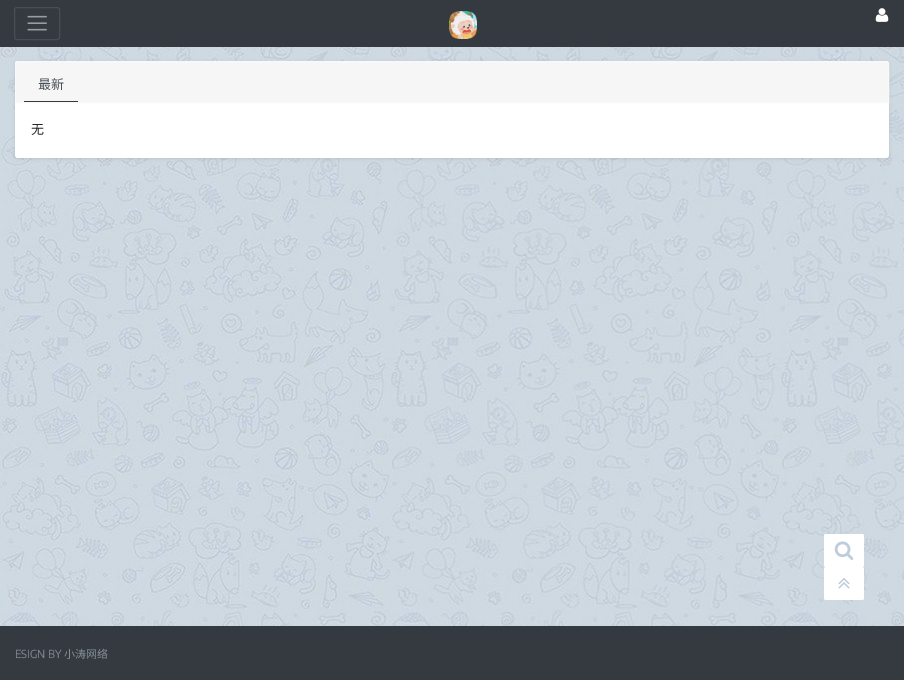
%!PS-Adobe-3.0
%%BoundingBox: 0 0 904 680
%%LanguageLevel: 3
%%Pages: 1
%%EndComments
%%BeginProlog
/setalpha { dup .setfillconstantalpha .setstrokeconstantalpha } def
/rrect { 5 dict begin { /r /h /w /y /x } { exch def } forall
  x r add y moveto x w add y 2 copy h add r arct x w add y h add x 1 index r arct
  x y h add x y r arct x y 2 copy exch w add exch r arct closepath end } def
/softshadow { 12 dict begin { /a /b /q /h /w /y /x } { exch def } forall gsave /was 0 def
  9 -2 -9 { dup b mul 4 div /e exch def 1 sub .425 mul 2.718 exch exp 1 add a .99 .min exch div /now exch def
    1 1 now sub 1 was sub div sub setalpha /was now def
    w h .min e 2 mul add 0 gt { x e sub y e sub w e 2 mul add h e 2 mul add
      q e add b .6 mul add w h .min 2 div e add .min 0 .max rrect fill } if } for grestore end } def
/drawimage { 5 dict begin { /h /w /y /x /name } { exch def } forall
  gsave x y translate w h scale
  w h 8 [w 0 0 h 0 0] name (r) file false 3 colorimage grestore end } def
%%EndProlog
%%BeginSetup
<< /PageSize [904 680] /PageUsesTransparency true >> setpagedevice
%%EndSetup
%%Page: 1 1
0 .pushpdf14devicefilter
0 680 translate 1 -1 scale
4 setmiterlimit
1 setgray
0 0 904 680 rectfill
(images/1.raw) 0 47 904 579 drawimage
0.204 0.227 0.251 setrgbcolor
0 0 904 47 rectfill
0.282 0.306 0.325 setrgbcolor
14.5 7.5 45 32 2.5 rrect stroke
(images/2.raw) 27 15 20 16 drawimage
(images/3.raw) 449 11 28 28 drawimage
(images/4.raw) 875 8 14 14 drawimage
0.102 setgray
15 62 874 97 3 1.5 0.1 softshadow
1 setgray
15 61 874 97 3 rrect fill
0.965 setgray
newpath 18 61.5 moveto 886 61.5 lineto 887.5 61.5 888.5 62.5 888.5 64 curveto 888.5 102.5 lineto 15.5 102.5 lineto 15.5 64 lineto 15.5 62.5 16.5 61.5 18 61.5 curveto closepath gsave fill grestore
0.973 0.976 0.98 setrgbcolor
stroke
0.204 0.227 0.251 setrgbcolor
24 101 54 1 rectfill
1 setgray
824 534 40 33 2 rrect fill
825 566 38 1 rectfill
(images/5.raw) 834 541 20 19 drawimage
824 567 40 33 2 rrect fill
825 599 38 1 rectfill
(images/6.raw) 838 578 12 11 drawimage
0.204 0.227 0.251 setrgbcolor
0 626 904 54 rectfill
/NotoSansCJKSC-Regular [13 0 0 -13 0 0] selectfont
0.286 0.314 0.341 setrgbcolor
38 89 moveto (最新) show
0.129 0.145 0.161 setrgbcolor
31 134 moveto (无) show
/EncodeSansCondensed-Regular [11 0 0 -11 0 0] selectfont
0.525 0.557 0.588 setrgbcolor
15 658 moveto (ESIGN BY) show
/NotoSansCJKSC-Regular [11 0 0 -11 0 0] selectfont
64 658 moveto (小涛网络) show
.poppdf14devicefilter showpage
%%EOF
